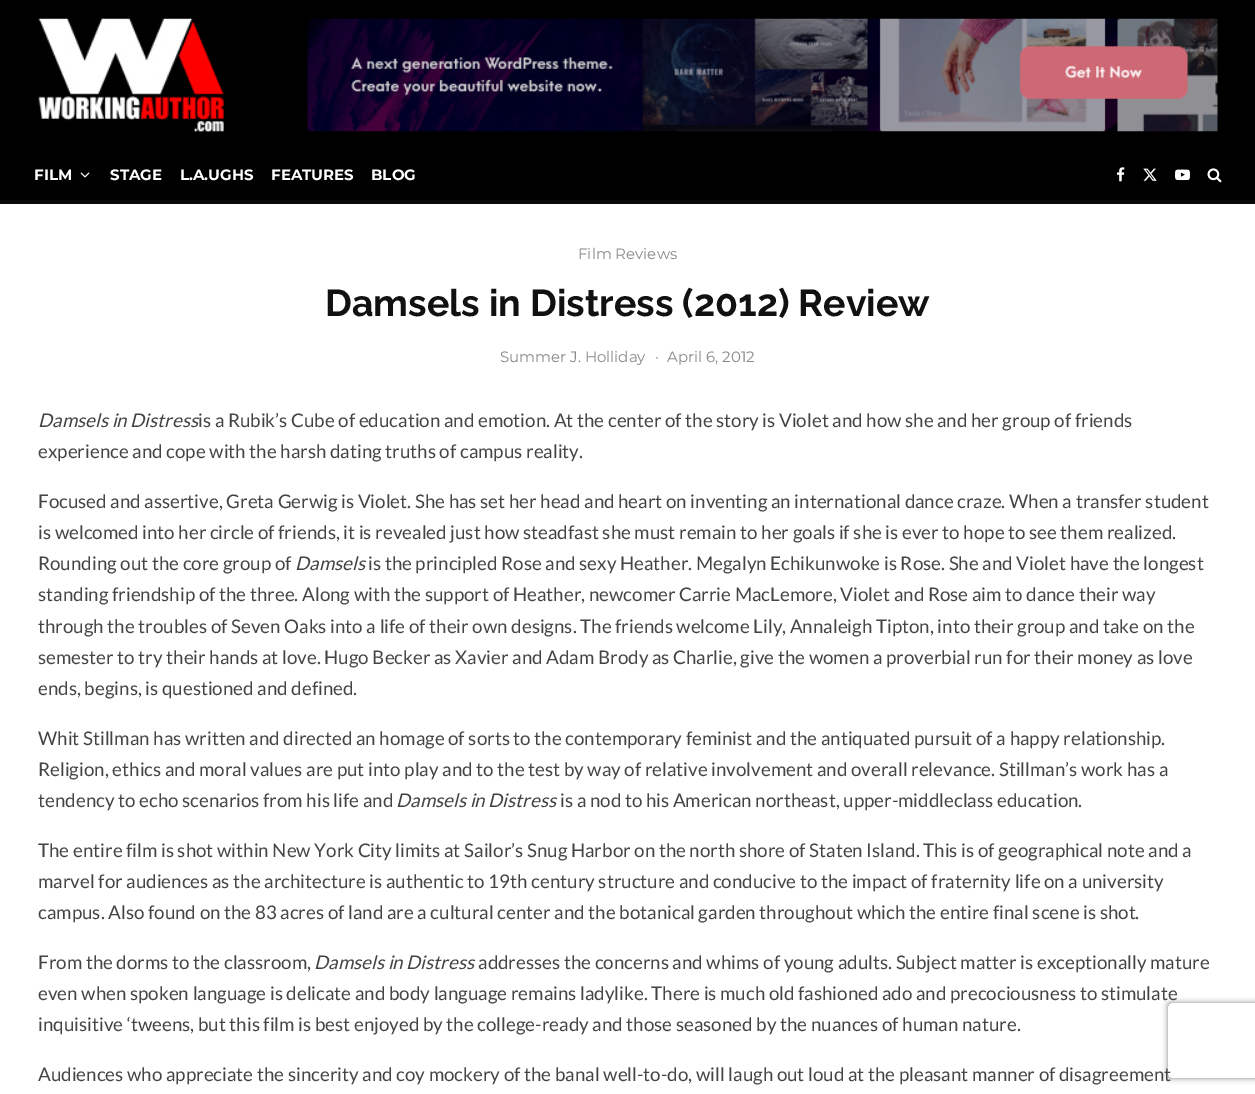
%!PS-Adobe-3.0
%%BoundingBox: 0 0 1255 1094
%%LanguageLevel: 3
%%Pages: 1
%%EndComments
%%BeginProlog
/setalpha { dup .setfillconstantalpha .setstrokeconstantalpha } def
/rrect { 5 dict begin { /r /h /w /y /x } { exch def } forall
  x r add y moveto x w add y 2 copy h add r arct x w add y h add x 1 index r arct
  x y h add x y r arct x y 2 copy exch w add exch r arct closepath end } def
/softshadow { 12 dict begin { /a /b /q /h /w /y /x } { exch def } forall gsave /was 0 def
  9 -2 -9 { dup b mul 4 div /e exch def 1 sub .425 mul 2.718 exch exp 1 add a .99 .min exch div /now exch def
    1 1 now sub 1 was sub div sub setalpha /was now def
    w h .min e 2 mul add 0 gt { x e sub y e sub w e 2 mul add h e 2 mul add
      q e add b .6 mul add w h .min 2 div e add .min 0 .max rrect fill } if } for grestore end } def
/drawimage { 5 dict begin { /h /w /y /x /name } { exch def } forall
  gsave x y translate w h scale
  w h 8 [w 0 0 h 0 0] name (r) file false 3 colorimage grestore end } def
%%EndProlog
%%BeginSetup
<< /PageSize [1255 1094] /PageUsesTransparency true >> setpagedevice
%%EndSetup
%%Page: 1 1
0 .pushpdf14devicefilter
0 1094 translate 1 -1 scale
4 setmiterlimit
0 setgray
0 0 1255 1094 rectfill
(images/1.raw) 38 18 186 114 drawimage
(images/2.raw) 307 18 911 114 drawimage
0.039 setgray
0 200 1255 4 rectfill
(images/3.raw) 80 172 10 6 drawimage
(images/4.raw) 1117 167 8 15 drawimage
(images/5.raw) 1143 168 14 13 drawimage
(images/6.raw) 1175 169 15 12 drawimage
(images/7.raw) 1207 168 15 15 drawimage
1 setgray
0 204 1255 890 rectfill
gsave
newpath 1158 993 moveto 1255 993 lineto 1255 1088 lineto 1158 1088 lineto closepath 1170.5 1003 moveto 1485.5 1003 lineto 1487 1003 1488 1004 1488 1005.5 curveto 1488 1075.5 lineto 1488 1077 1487 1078 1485.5 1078 curveto 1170.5 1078 lineto 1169 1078 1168 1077 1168 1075.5 curveto 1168 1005.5 lineto 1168 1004 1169 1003 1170.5 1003 curveto closepath eoclip newpath
0.502 setgray
1168 1003 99 75 2.5 3 1 softshadow
grestore
/Montserrat-Bold [15 0 0 -15 0 0] selectfont
34 180 moveto (FILM) show
110 180 moveto (STAGE) show
180 180 moveto (L.A.UGHS) show
271 180 moveto (FEATURES) show
371 180 moveto (BLOG) show
/Montserrat-Regular [15 0 0 -15 0 0] selectfont
0.533 setgray
578 259 moveto (Film Reviews) show
/Raleway-Bold [37.5 0 0 -37.5 0 0] selectfont
0.067 setgray
325 316 moveto (Damsels in Distress \(2012\) Review) show
/Montserrat-Regular [15 0 0 -15 0 0] selectfont
0.533 setgray
500 362 moveto (Summer J. Holliday) show
655 362 moveto (·) show
667 362 moveto (April 6, 2012) show
/Lato-Italic [18.75 0 0 -18.75 0 0] selectfont
0.267 setgray
38 427 moveto (Damsels in Distress) show
/Lato-Regular [18.75 0 0 -18.75 0 0] selectfont
198 427 moveto (is a Rubik’s Cube of education and emotion. At the center of the story is Violet and how she and her group of friends) show
38 458 moveto (experience and cope with the harsh dating truths of campus reality.) show
38 508 moveto (Focused and assertive, Greta Gerwig is Violet. She has set her head and heart on inventing an international dance craze. When a transfer student) show
38 539 moveto (is welcomed into her circle of friends, it is revealed just how steadfast she must remain to her goals if she is ever to hope to see them realized.) show
38 570 moveto (Rounding out the core group of) show
/Lato-Italic [18.75 0 0 -18.75 0 0] selectfont
295 570 moveto (Damsels) show
/Lato-Regular [18.75 0 0 -18.75 0 0] selectfont
368 570 moveto (is the principled Rose and sexy Heather. Megalyn Echikunwoke is Rose. She and Violet have the longest) show
38 601 moveto (standing friendship of the three. Along with the support of Heather, newcomer Carrie MacLemore, Violet and Rose aim to dance their way) show
38 633 moveto (through the troubles of Seven Oaks into a life of their own designs. The friends welcome Lily, Annaleigh Tipton, into their group and take on the) show
38 664 moveto (semester to try their hands at love. Hugo Becker as Xavier and Adam Brody as Charlie, give the women a proverbial run for their money as love) show
38 695 moveto (ends, begins, is questioned and defined.) show
38 745 moveto (Whit Stillman has written and directed an homage of sorts to the contemporary feminist and the antiquated pursuit of a happy relationship.) show
38 776 moveto (Religion, ethics and moral values are put into play and to the test by way of relative involvement and overall relevance. Stillman’s work has a) show
38 807 moveto (tendency to echo scenarios from his life and) show
/Lato-Italic [18.75 0 0 -18.75 0 0] selectfont
396 807 moveto (Damsels in Distress) show
/Lato-Regular [18.75 0 0 -18.75 0 0] selectfont
560 807 moveto (is a nod to his American northeast, upper-middleclass education.) show
38 857 moveto (The entire film is shot within New York City limits at Sailor’s Snug Harbor on the north shore of Staten Island. This is of geographical note and a) show
38 888 moveto (marvel for audiences as the architecture is authentic to 19th century structure and conducive to the impact of fraternity life on a university) show
38 919 moveto (campus. Also found on the 83 acres of land are a cultural center and the botanical garden throughout which the entire final scene is shot.) show
38 969 moveto (From the dorms to the classroom,) show
/Lato-Italic [18.75 0 0 -18.75 0 0] selectfont
314 969 moveto (Damsels in Distress) show
/Lato-Regular [18.75 0 0 -18.75 0 0] selectfont
478 969 moveto (addresses the concerns and whims of young adults. Subject matter is exceptionally mature) show
38 1000 moveto (even when spoken language is delicate and body language remains ladylike. There is much old fashioned ado and precociousness to stimulate) show
38 1031 moveto (inquisitive ‘tweens, but this film is best enjoyed by the college-ready and those seasoned by the nuances of human nature.) show
38 1081 moveto (Audiences who appreciate the sincerity and coy mockery of the banal well-to-do, will laugh out loud at the pleasant manner of disagreement) show
.poppdf14devicefilter showpage
%%EOF
